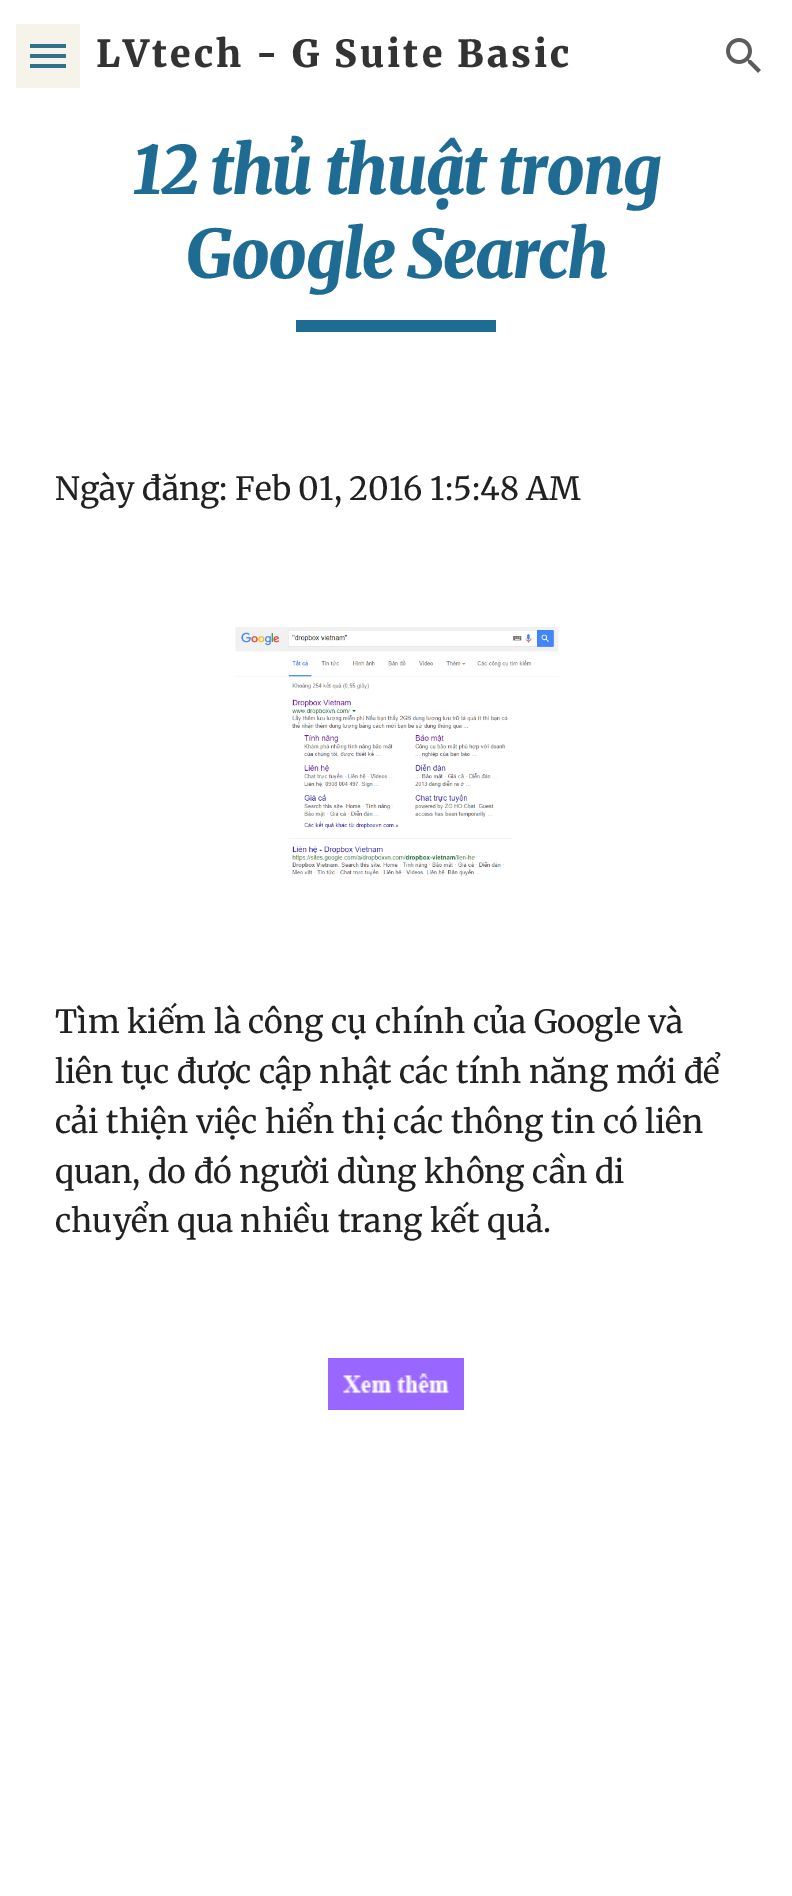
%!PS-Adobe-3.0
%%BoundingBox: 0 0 792 1896
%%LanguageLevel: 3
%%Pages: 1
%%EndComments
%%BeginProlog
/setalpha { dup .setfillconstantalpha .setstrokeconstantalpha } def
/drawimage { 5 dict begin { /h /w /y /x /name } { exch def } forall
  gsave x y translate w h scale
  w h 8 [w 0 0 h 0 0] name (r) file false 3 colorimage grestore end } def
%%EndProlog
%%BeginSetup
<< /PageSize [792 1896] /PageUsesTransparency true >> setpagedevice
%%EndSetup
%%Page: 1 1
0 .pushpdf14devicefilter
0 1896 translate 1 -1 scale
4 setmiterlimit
1 setgray
0 0 792 1896 rectfill
0.118 0.424 0.576 setrgbcolor
30 44 36 4 rectfill
30 54 36 4 rectfill
30 64 36 4 rectfill
0.12 setalpha
0.718 0.6 0.318 setrgbcolor
16 24 64 64 rectfill
1 setalpha
(images/1.raw) 726 38 35 35 drawimage
0.118 0.424 0.576 setrgbcolor
296 320 200 12 rectfill
(images/2.raw) 235 627 324 249 drawimage
(images/3.raw) 328 1358 136 52 drawimage
/Merriweather-Black [37.3 0 0 -37.3 0 0] selectfont
0.2 setgray
96 67 moveto 3 0 (LVtech - G Suite Basic) ashow
/Merriweather-BlackItalic [66.75 0 0 -66.75 0 0] selectfont
0.118 0.424 0.576 setrgbcolor
133 194 moveto -1.75 0 (12 thủ thuật trong) ashow
186 278 moveto -1.75 0 (Google Search) ashow
/Merriweather-Regular [32 0 0 -32 0 0] selectfont
0.129 setgray
55 500 moveto (Ngày đăng: Feb 01, 2016 1:5:48 AM) show
55 1033 moveto (Tìm kiếm là công cụ chính của Google và) show
55 1083 moveto (liên tục được cập nhật các tính năng mới để) show
55 1133 moveto (cải thiện việc hiển thị các thông tin có liên) show
55 1183 moveto (quan, do đó người dùng không cần di) show
55 1232 moveto (chuyển qua nhiều trang kết quả.) show
.poppdf14devicefilter showpage
%%EOF
